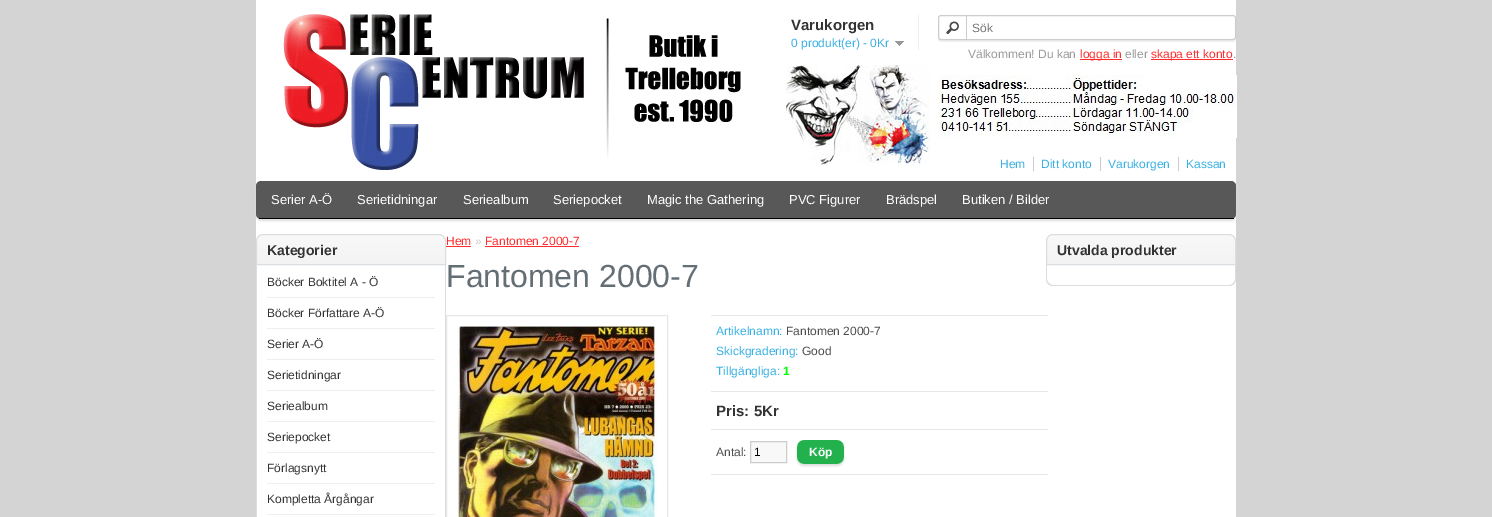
%!PS-Adobe-3.0
%%BoundingBox: 0 0 1492 517
%%LanguageLevel: 3
%%Pages: 1
%%EndComments
%%BeginProlog
/setalpha { dup .setfillconstantalpha .setstrokeconstantalpha } def
/rrect { 5 dict begin { /r /h /w /y /x } { exch def } forall
  x r add y moveto x w add y 2 copy h add r arct x w add y h add x 1 index r arct
  x y h add x y r arct x y 2 copy exch w add exch r arct closepath end } def
/softshadow { 12 dict begin { /a /b /q /h /w /y /x } { exch def } forall gsave /was 0 def
  9 -2 -9 { dup b mul 4 div /e exch def 1 sub .425 mul 2.718 exch exp 1 add a .99 .min exch div /now exch def
    1 1 now sub 1 was sub div sub setalpha /was now def
    w h .min e 2 mul add 0 gt { x e sub y e sub w e 2 mul add h e 2 mul add
      q e add b .6 mul add w h .min 2 div e add .min 0 .max rrect fill } if } for grestore end } def
/drawimage { 5 dict begin { /h /w /y /x /name } { exch def } forall
  gsave x y translate w h scale
  w h 8 [w 0 0 h 0 0] name (r) file false 3 colorimage grestore end } def
%%EndProlog
%%BeginSetup
<< /PageSize [1492 517] /PageUsesTransparency true >> setpagedevice
%%EndSetup
%%Page: 1 1
0 .pushpdf14devicefilter
0 517 translate 1 -1 scale
4 setmiterlimit
0.831 setgray
0 0 1492 517 rectfill
1 setgray
256 0 980 517 rectfill
(images/1.raw) 279 14 462 156 drawimage
0.933 setgray
918 15 1 35 rectfill
(images/2.raw) 895 41 9 5 drawimage
0.941 setgray
newpath 938 37 moveto 938 39 938 42 941 42 curveto 1233 42 lineto 1236 42 1236 39 1236 37 curveto 1236 39 1235 40 1233 40 curveto 941 40 lineto 939 40 938 39 938 37 curveto closepath fill
0.8 setgray
938.5 15.5 297 24 2.5 rrect stroke
(images/3.raw) 946 21 13 13 drawimage
966 15 1 24 rectfill
1 0.176 0.176 setrgbcolor
1080 59 42 1 rectfill
1151 59 82 1 rectfill
(images/4.raw) 938 75 299 63 drawimage
(images/5.raw) 786 65 144 100 drawimage
0.8 setgray
1033 157 1 14 rectfill
1100 157 1 14 rectfill
1178 157 1 14 rectfill
0.867 setgray
256 183 980 38 5 1 1 softshadow
0.345 setgray
256 181 980 38 5 rrect fill
0 setgray
259 218 975 1 rectfill
(images/6.raw) 256 235 190 29 drawimage
0.859 0.871 0.882 setrgbcolor
newpath 263 234.5 moveto 439 234.5 lineto 442.5 234.5 445.5 237.5 445.5 241 curveto 445.5 264.5 lineto 256.5 264.5 lineto 256.5 241 lineto 256.5 237.5 259.5 234.5 263 234.5 curveto closepath stroke
newpath 256 265 moveto 446 265 lineto 446 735 lineto 446 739 443 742 439 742 curveto 263 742 lineto 259 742 256 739 256 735 curveto closepath 257 265 moveto 445 265 lineto 445 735 lineto 445 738 442 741 439 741 curveto 263 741 lineto 260 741 257 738 257 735 curveto closepath eofill
0.933 setgray
267 297 168 1 rectfill
267 328 168 1 rectfill
267 359 168 1 rectfill
267 390 168 1 rectfill
267 421 168 1 rectfill
267 452 168 1 rectfill
267 483 168 1 rectfill
267 514 168 1 rectfill
1 0.176 0.176 setrgbcolor
446 246 25 1 rectfill
485 246 94 1 rectfill
0.906 setgray
446.5 315.5 221 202 rectstroke
(images/7.raw) 457 326 200 191 drawimage
711 315 337 1 rectfill
711 391 337 1 rectfill
711 429 337 1 rectfill
711 474 337 1 rectfill
0.973 setgray
newpath 750.5 441.5 moveto 786.5 441.5 lineto 786.5 462.5 lineto 750.5 462.5 lineto closepath gsave fill grestore
0.8 setgray
stroke
0.867 setgray
797 442 47 24 7 1 1 softshadow
(images/8.raw) 797 440 47 24 drawimage
(images/6.raw) 1046 235 190 29 drawimage
0.859 0.871 0.882 setrgbcolor
newpath 1053 234.5 moveto 1229 234.5 lineto 1232.5 234.5 1235.5 237.5 1235.5 241 curveto 1235.5 264.5 lineto 1046.5 264.5 lineto 1046.5 241 lineto 1046.5 237.5 1049.5 234.5 1053 234.5 curveto closepath stroke
newpath 1046 265 moveto 1236 265 lineto 1236 279 lineto 1236 283 1233 286 1229 286 curveto 1053 286 lineto 1049 286 1046 283 1046 279 curveto closepath 1047 265 moveto 1235 265 lineto 1235 279 lineto 1235 282 1232 285 1229 285 curveto 1053 285 lineto 1050 285 1047 282 1047 279 curveto closepath eofill
/LiberationSans-Bold [15 0 0 -15 0 0] selectfont
0.2 setgray
791 30 moveto (Varukorgen) show
/LiberationSans-Regular [12 0 0 -12 0 0] selectfont
0.22 0.69 0.89 setrgbcolor
791 47 moveto (0 produkt\(er\) - 0Kr) show
0.459 setgray
972 32 moveto (Sök) show
0.6 setgray
968 58 moveto (Välkommen! Du kan) show
1 0.176 0.176 setrgbcolor
1080 58 moveto (logga in) show
0.6 setgray
1125 58 moveto (eller) show
1 0.176 0.176 setrgbcolor
1151 58 moveto (skapa ett konto) show
0.6 setgray
1233 58 moveto (.) show
0.22 0.69 0.89 setrgbcolor
1000 168 moveto (Hem) show
1041 168 moveto (Ditt konto) show
1108 168 moveto (Varukorgen) show
1186 168 moveto (Kassan) show
/LiberationSans-Regular [13 0 0 -13 0 0] selectfont
1 setgray
271 204 moveto (Serier A-Ö) show
357 204 moveto (Serietidningar) show
463 204 moveto (Seriealbum) show
553 204 moveto (Seriepocket) show
647 204 moveto (Magic the Gathering) show
789 204 moveto (PVC Figurer) show
886 204 moveto (Brädspel) show
962 204 moveto (Butiken / Bilder) show
/LiberationSans-Bold [14 0 0 -14 0 0] selectfont
0.2 setgray
267 255 moveto (Kategorier) show
/LiberationSans-Regular [12 0 0 -12 0 0] selectfont
267 286 moveto (Böcker Boktitel A - Ö) show
267 317 moveto (Böcker Författare A-Ö) show
267 348 moveto (Serier A-Ö) show
267 379 moveto (Serietidningar) show
267 410 moveto (Seriealbum) show
267 441 moveto (Seriepocket) show
267 472 moveto (Förlagsnytt) show
267 503 moveto (Kompletta Årgångar) show
1 0.176 0.176 setrgbcolor
446 245 moveto (Hem) show
0.8 setgray
475 245 moveto (») show
1 0.176 0.176 setrgbcolor
485 245 moveto (Fantomen 2000-7) show
/LiberationSans-Regular [32 0 0 -32 0 0] selectfont
0.388 0.431 0.459 setrgbcolor
446 287 moveto (Fantomen 2000-7) show
/LiberationSans-Regular [12 0 0 -12 0 0] selectfont
0.22 0.69 0.89 setrgbcolor
716 335 moveto (Artikelnamn:) show
0.302 setgray
786 335 moveto (Fantomen 2000-7) show
0.22 0.69 0.89 setrgbcolor
716 355 moveto (Skickgradering:) show
0.302 setgray
802 355 moveto (Good) show
0.22 0.69 0.89 setrgbcolor
716 375 moveto (Tillgängliga:) show
/LiberationSans-Bold [12 0 0 -12 0 0] selectfont
0 1 0 setrgbcolor
783 375 moveto (1) show
/LiberationSans-Bold [15 0 0 -15 0 0] selectfont
0.2 setgray
716 416 moveto (Pris: 5Kr) show
/LiberationSans-Regular [12 0 0 -12 0 0] selectfont
0.302 setgray
716 456 moveto (Antal:) show
0 setgray
754 456 moveto (1) show
/LiberationSans-Bold [12 0 0 -12 0 0] selectfont
1 setgray
809 456 moveto (Köp) show
/LiberationSans-Bold [14 0 0 -14 0 0] selectfont
0.2 setgray
1057 255 moveto (Utvalda produkter) show
.poppdf14devicefilter showpage
%%EOF
